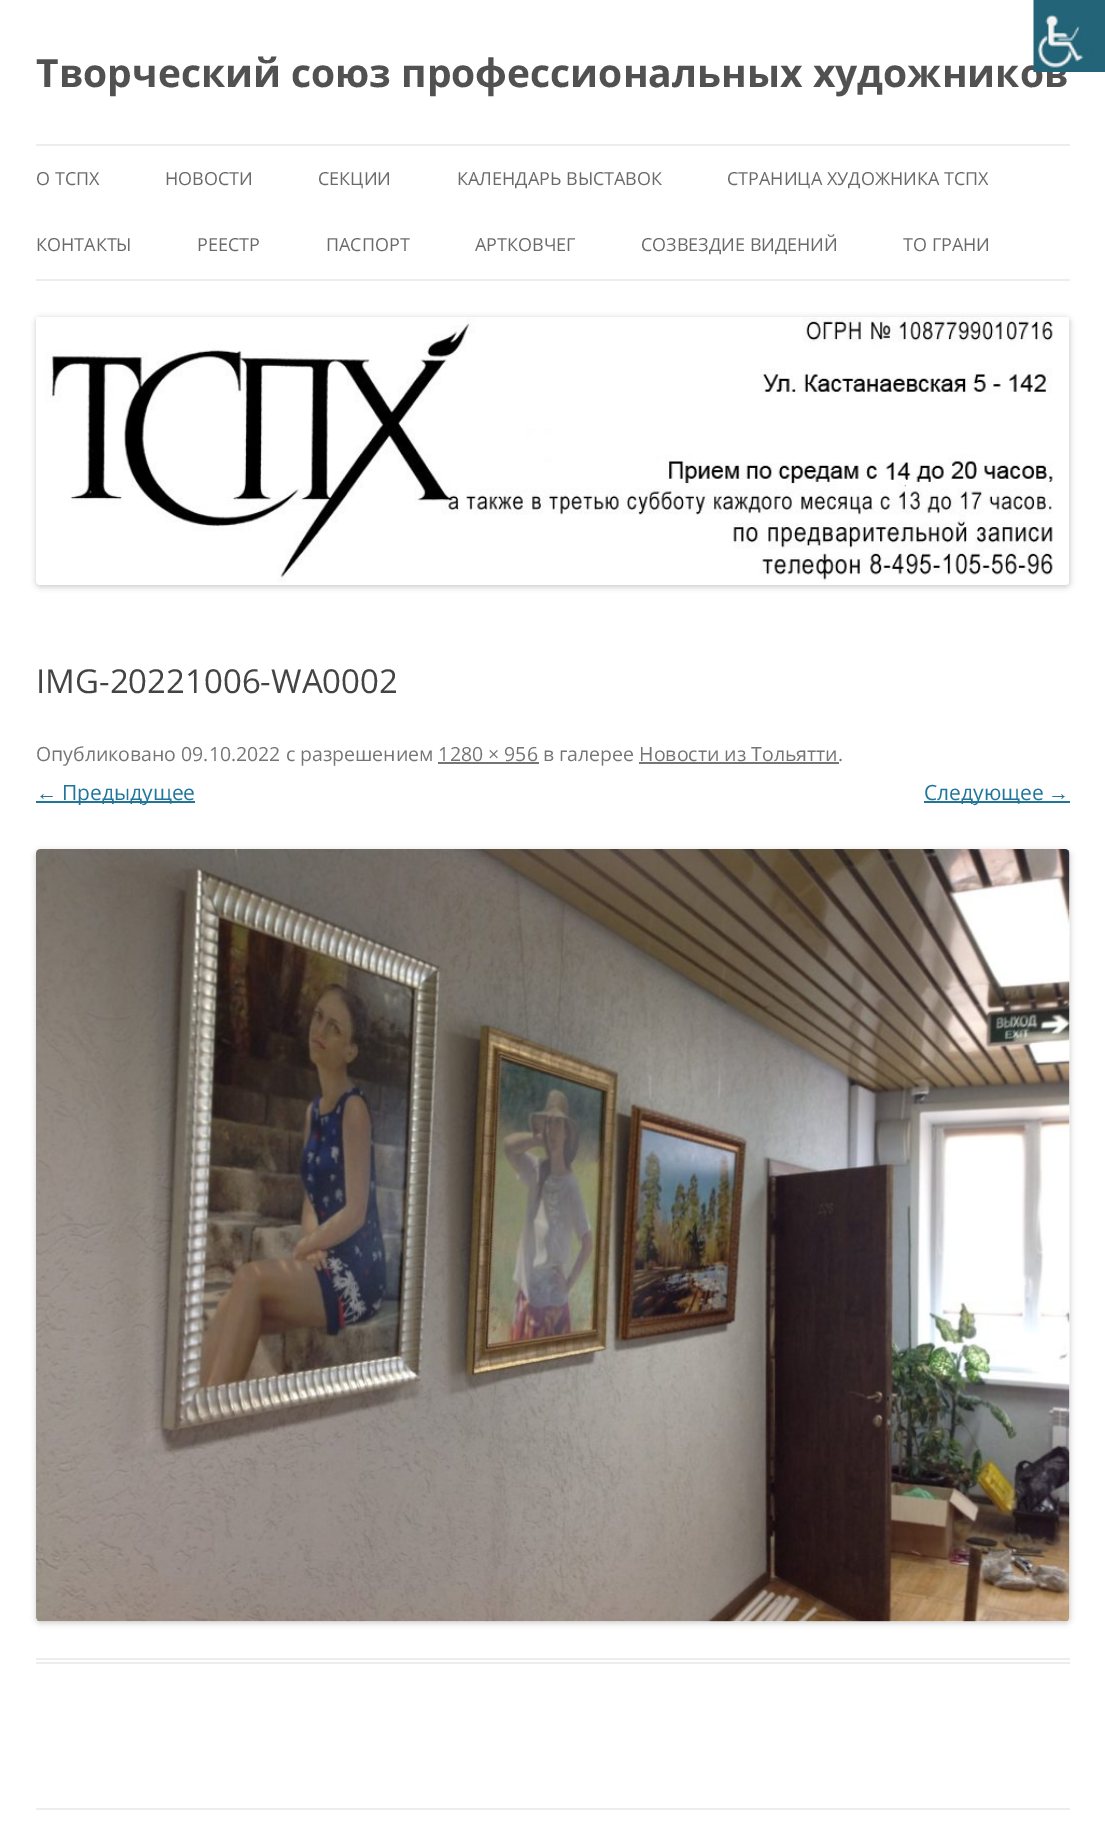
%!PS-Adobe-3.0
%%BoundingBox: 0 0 1105 1843
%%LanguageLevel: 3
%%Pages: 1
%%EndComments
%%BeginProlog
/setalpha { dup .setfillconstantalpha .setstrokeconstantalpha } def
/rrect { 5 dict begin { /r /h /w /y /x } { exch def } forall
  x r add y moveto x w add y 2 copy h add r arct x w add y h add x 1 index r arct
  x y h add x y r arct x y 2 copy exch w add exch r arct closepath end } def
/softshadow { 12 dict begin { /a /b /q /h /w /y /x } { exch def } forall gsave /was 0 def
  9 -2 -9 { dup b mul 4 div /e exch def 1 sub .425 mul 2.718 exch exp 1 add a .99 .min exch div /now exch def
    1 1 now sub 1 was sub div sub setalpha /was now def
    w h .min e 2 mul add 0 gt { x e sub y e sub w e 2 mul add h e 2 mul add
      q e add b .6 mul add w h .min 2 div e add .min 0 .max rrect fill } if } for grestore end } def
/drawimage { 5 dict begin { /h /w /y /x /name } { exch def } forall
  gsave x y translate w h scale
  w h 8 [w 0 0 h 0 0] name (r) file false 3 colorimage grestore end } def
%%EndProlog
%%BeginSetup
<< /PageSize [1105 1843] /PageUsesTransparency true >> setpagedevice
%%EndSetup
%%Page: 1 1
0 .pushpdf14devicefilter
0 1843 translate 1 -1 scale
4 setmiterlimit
1 setgray
0 0 1105 1843 rectfill
0.929 setgray
36 144 1034 2 rectfill
36 279 1034 2 rectfill
0 setgray
36 318 1034 269 5 3 0.2 softshadow
(images/2.raw) 36 317 1033 268 drawimage
0.929 setgray
36 1658 1034 2 rectfill
36 1662 1034 2 rectfill
0.459 setgray
438 762 101 2 rectfill
639 762 200 2 rectfill
0.129 0.459 0.608 setrgbcolor
36 801 159 2 rectfill
924 801 146 2 rectfill
0 setgray
36 851 1034 772 5 3 0.2 softshadow
(images/3.raw) 36 849 1034 773 drawimage
0.929 setgray
36 1808 1034 2 rectfill
/OpenSans-Bold [39 0 0 -39 0 0] selectfont
0.318 setgray
36 87 moveto (Творческий союз профессиональных художников) show
(images/1.raw) 1033 0 72 72 drawimage
/OpenSans-Regular [18 0 0 -18 0 0] selectfont
0.416 setgray
36 185 moveto (О ТСПХ) show
165 185 moveto (НОВОСТИ) show
318 185 moveto (СЕКЦИИ) show
457 185 moveto (КАЛЕНДАРЬ ВЫСТАВОК) show
727 185 moveto (СТРАНИЦА ХУДОЖНИКА ТСПХ) show
36 251 moveto (КОНТАКТЫ) show
197 251 moveto (РЕЕСТР) show
326 251 moveto (ПАСПОРТ) show
475 251 moveto (АРТКОВЧЕГ) show
641 251 moveto (СОЗВЕЗДИЕ ВИДЕНИЙ) show
903 251 moveto (ТО ГРАНИ) show
/OpenSans-Regular [33 0 0 -33 0 0] selectfont
0.267 setgray
36 693 moveto (IMG-20221006-WA0002) show
/OpenSans-Regular [19.5 0 0 -19.5 0 0] selectfont
0.459 setgray
36 761 moveto (Опубликовано 09.10.2022 с разрешением 1280 × 956 в галерее Новости из Тольятти.) show
/LiberationSans-Regular [21 0 0 -21 0 0] selectfont
0.129 0.459 0.608 setrgbcolor
36 800 moveto (←) show
/OpenSans-Regular [21 0 0 -21 0 0] selectfont
62 800 moveto (Предыдущее) show
924 800 moveto (Следующее) show
/LiberationSans-Regular [21 0 0 -21 0 0] selectfont
1048 800 moveto (→) show
.poppdf14devicefilter showpage
%%EOF
